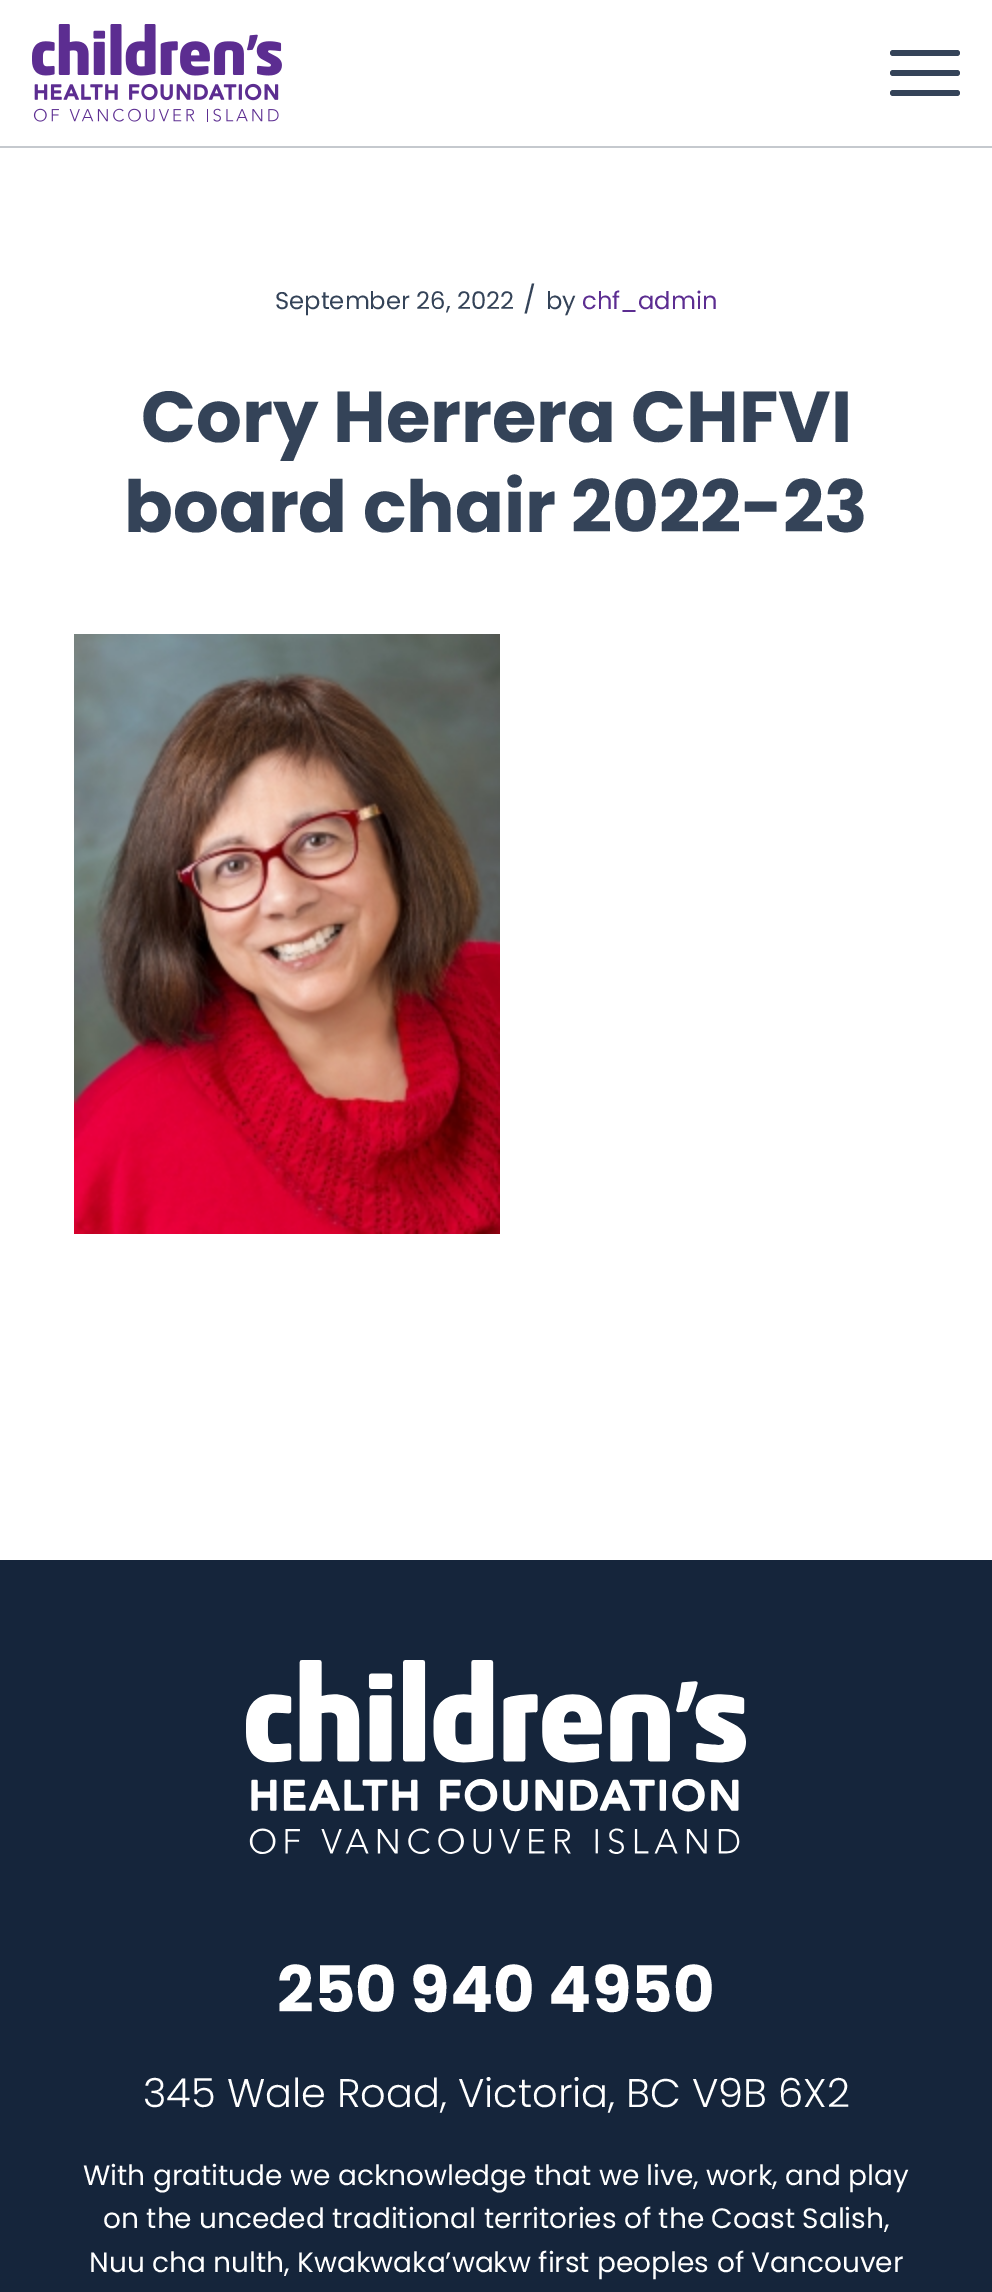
%!PS-Adobe-3.0
%%BoundingBox: 0 0 992 2292
%%LanguageLevel: 3
%%Pages: 1
%%EndComments
%%BeginProlog
/rrect { 5 dict begin { /r /h /w /y /x } { exch def } forall
  x r add y moveto x w add y 2 copy h add r arct x w add y h add x 1 index r arct
  x y h add x y r arct x y 2 copy exch w add exch r arct closepath end } def
/drawimage { 5 dict begin { /h /w /y /x /name } { exch def } forall
  gsave x y translate w h scale
  w h 8 [w 0 0 h 0 0] name (r) file false 3 colorimage grestore end } def
%%EndProlog
%%BeginSetup
<< /PageSize [992 2292] >> setpagedevice
%%EndSetup
%%Page: 1 1
0 2292 translate 1 -1 scale
4 setmiterlimit
1 setgray
0 0 992 2292 rectfill
0.773 0.788 0.808 setrgbcolor
0 146 992 2 rectfill
(images/1.raw) 32 24 250 98 drawimage
0.204 0.263 0.345 setrgbcolor
890 70 70 6 3 rrect fill
890 50 70 6 3 rrect fill
890 90 70 6 3 rrect fill
(images/2.raw) 74 634 426 600 drawimage
0.082 0.145 0.231 setrgbcolor
0 1560 992 732 rectfill
(images/3.raw) 246 1660 500 194 drawimage
/Poppins-Regular [24.25 0 0 -24.25 0 0] selectfont
0.204 0.263 0.345 setrgbcolor
275 309 moveto (September 26, 2022) show
/Poppins-Regular [27 0 0 -27 0 0] selectfont
523 309 moveto (/) show
/Poppins-Regular [24.25 0 0 -24.25 0 0] selectfont
546 309 moveto (by) show
0.361 0.176 0.569 setrgbcolor
582 309 moveto (chf_admin) show
/Poppins-Bold [72 0 0 -72 0 0] selectfont
0.204 0.263 0.345 setrgbcolor
141 442 moveto (Cory Herrera CHFVI) show
124 532 moveto (board chair 2022-23) show
/Poppins-Bold [64 0 0 -64 0 0] selectfont
1 setgray
277 2012 moveto (250 940 4950) show
/Poppins-Light [40 0 0 -40 0 0] selectfont
143 2107 moveto (345 Wale Road, Victoria, BC V9B 6X2) show
/Poppins-Regular [28 0 0 -28 0 0] selectfont
83 2185 moveto (With gratitude we acknowledge that we live, work, and play) show
103 2228 moveto (on the unceded traditional territories of the Coast Salish,) show
89 2272 moveto (Nuu cha nulth, Kwakwaka’wakw first peoples of Vancouver) show
showpage
%%EOF
